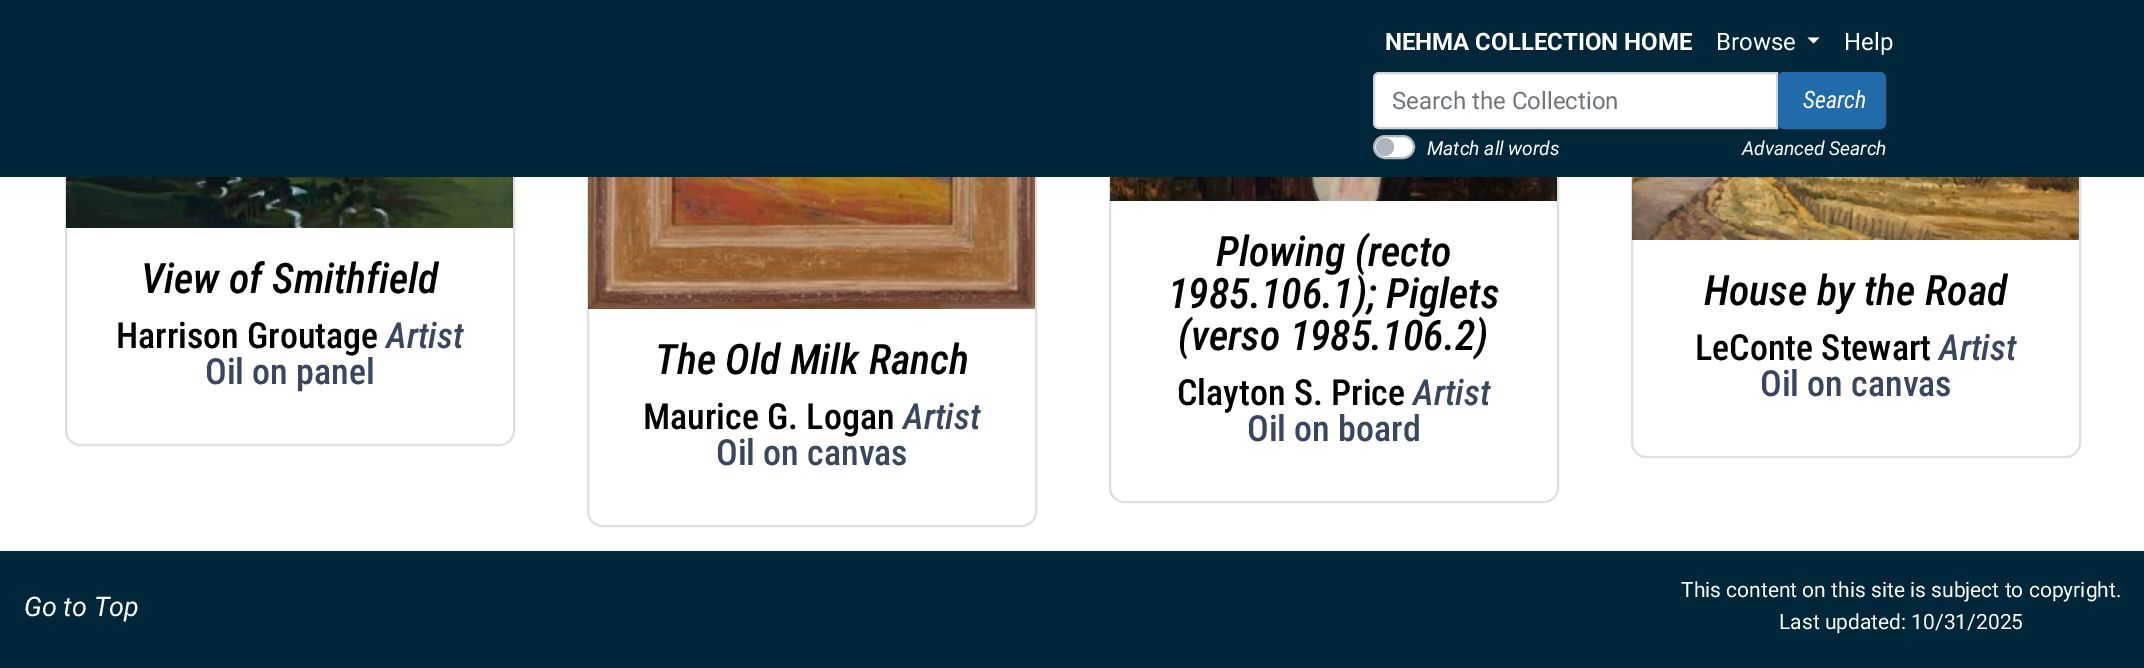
%!PS-Adobe-3.0
%%BoundingBox: 0 0 2144 668
%%LanguageLevel: 3
%%Pages: 1
%%EndComments
%%BeginProlog
/rrect { 5 dict begin { /r /h /w /y /x } { exch def } forall
  x r add y moveto x w add y 2 copy h add r arct x w add y h add x 1 index r arct
  x y h add x y r arct x y 2 copy exch w add exch r arct closepath end } def
/drawimage { 5 dict begin { /h /w /y /x /name } { exch def } forall
  gsave x y translate w h scale
  w h 8 [w 0 0 h 0 0] name (r) file false 3 colorimage grestore end } def
%%EndProlog
%%BeginSetup
<< /PageSize [2144 668] >> setpagedevice
%%EndSetup
%%Page: 1 1
0 668 translate 1 -1 scale
4 setmiterlimit
1 setgray
0 0 2144 668 rectfill
0.875 setgray
2 setlinewidth
66 -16 448 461 14 rrect stroke
588 -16 448 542 14 rrect stroke
1110 -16 448 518 14 rrect stroke
1632 -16 448 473 14 rrect stroke
0 0.149 0.227 setrgbcolor
0 0 2144 177 rectfill
1 setgray
newpath 1807.5 37.5 moveto 1819.5 37.5 lineto 1813.5 43.5 lineto closepath fill
newpath 1379 73 moveto 1777 73 lineto 1777 128 lineto 1379 128 lineto 1376 128 1374 126 1374 123 curveto 1374 78 lineto 1374 75 1376 73 1379 73 curveto closepath gsave fill grestore
0.808 0.831 0.855 setrgbcolor
stroke
0.133 0.42 0.667 setrgbcolor
1779 73 106 55 5 rrect gsave fill grestore
stroke
1 setgray
1374 136 40 22 11 rrect gsave fill grestore
0.678 0.71 0.741 setrgbcolor
stroke
newpath 1385 147 9 0 360 arc closepath fill
(images/1.raw) 66 177 447 51 drawimage
(images/2.raw) 588 177 447 132 drawimage
(images/3.raw) 1110 177 447 24 drawimage
(images/4.raw) 1632 177 447 63 drawimage
0 0.149 0.227 setrgbcolor
0 551 2144 117 rectfill
/Roboto-Bold [24 0 0 -24 0 0] selectfont
1 setgray
1385 50 moveto (NEHMA COLLECTION HOME) show
/Roboto-Regular [24 0 0 -24 0 0] selectfont
1716 50 moveto (Browse) show
1844 50 moveto (Help) show
0.424 0.459 0.49 setrgbcolor
1392 109 moveto (Search the Collection) show
/RobotoCondensed-Italic [24 0 0 -24 0 0] selectfont
1 setgray
1803 108 moveto (Search) show
/Roboto-Italic [19.25 0 0 -19.25 0 0] selectfont
1427 155 moveto (Match all words) show
1742 155 moveto (Advanced Search) show
/RobotoCondensed-MediumItalic [42 0 0 -42 0 0] selectfont
0 setgray
141 293 moveto (View of Smithfield) show
/RobotoCondensed-Medium [36 0 0 -36 0 0] selectfont
116 348 moveto (Harrison Groutage) show
/RobotoCondensed-MediumItalic [36 0 0 -36 0 0] selectfont
0.22 0.275 0.376 setrgbcolor
386 348 moveto (Artist) show
/RobotoCondensed-Medium [36 0 0 -36 0 0] selectfont
205 384 moveto (Oil on panel) show
/RobotoCondensed-MediumItalic [42 0 0 -42 0 0] selectfont
0 setgray
655 374 moveto (The Old Milk Ranch) show
/RobotoCondensed-Medium [36 0 0 -36 0 0] selectfont
643 429 moveto (Maurice G. Logan) show
/RobotoCondensed-MediumItalic [36 0 0 -36 0 0] selectfont
0.22 0.275 0.376 setrgbcolor
903 429 moveto (Artist) show
/RobotoCondensed-Medium [36 0 0 -36 0 0] selectfont
716 465 moveto (Oil on canvas) show
/RobotoCondensed-MediumItalic [42 0 0 -42 0 0] selectfont
0 setgray
1216 266 moveto (Plowing \(recto) show
1168 308 moveto (1985.106.1\); Piglets) show
1178 350 moveto (\(verso 1985.106.2\)) show
/RobotoCondensed-Medium [36 0 0 -36 0 0] selectfont
1177 405 moveto (Clayton S. Price) show
/RobotoCondensed-MediumItalic [36 0 0 -36 0 0] selectfont
0.22 0.275 0.376 setrgbcolor
1413 405 moveto (Artist) show
/RobotoCondensed-Medium [36 0 0 -36 0 0] selectfont
1247 441 moveto (Oil on board) show
/RobotoCondensed-MediumItalic [42 0 0 -42 0 0] selectfont
0 setgray
1704 305 moveto (House by the Road) show
/RobotoCondensed-Medium [36 0 0 -36 0 0] selectfont
1695 360 moveto (LeConte Stewart) show
/RobotoCondensed-MediumItalic [36 0 0 -36 0 0] selectfont
0.22 0.275 0.376 setrgbcolor
1939 360 moveto (Artist) show
/RobotoCondensed-Medium [36 0 0 -36 0 0] selectfont
1760 396 moveto (Oil on canvas) show
/Roboto-Italic [27 0 0 -27 0 0] selectfont
1 setgray
24 616 moveto (Go to Top) show
/Roboto-Regular [21 0 0 -21 0 0] selectfont
1681 597 moveto (This content on this site is subject to copyright.) show
1779 629 moveto (Last updated: 10/31/2025) show
showpage
%%EOF
